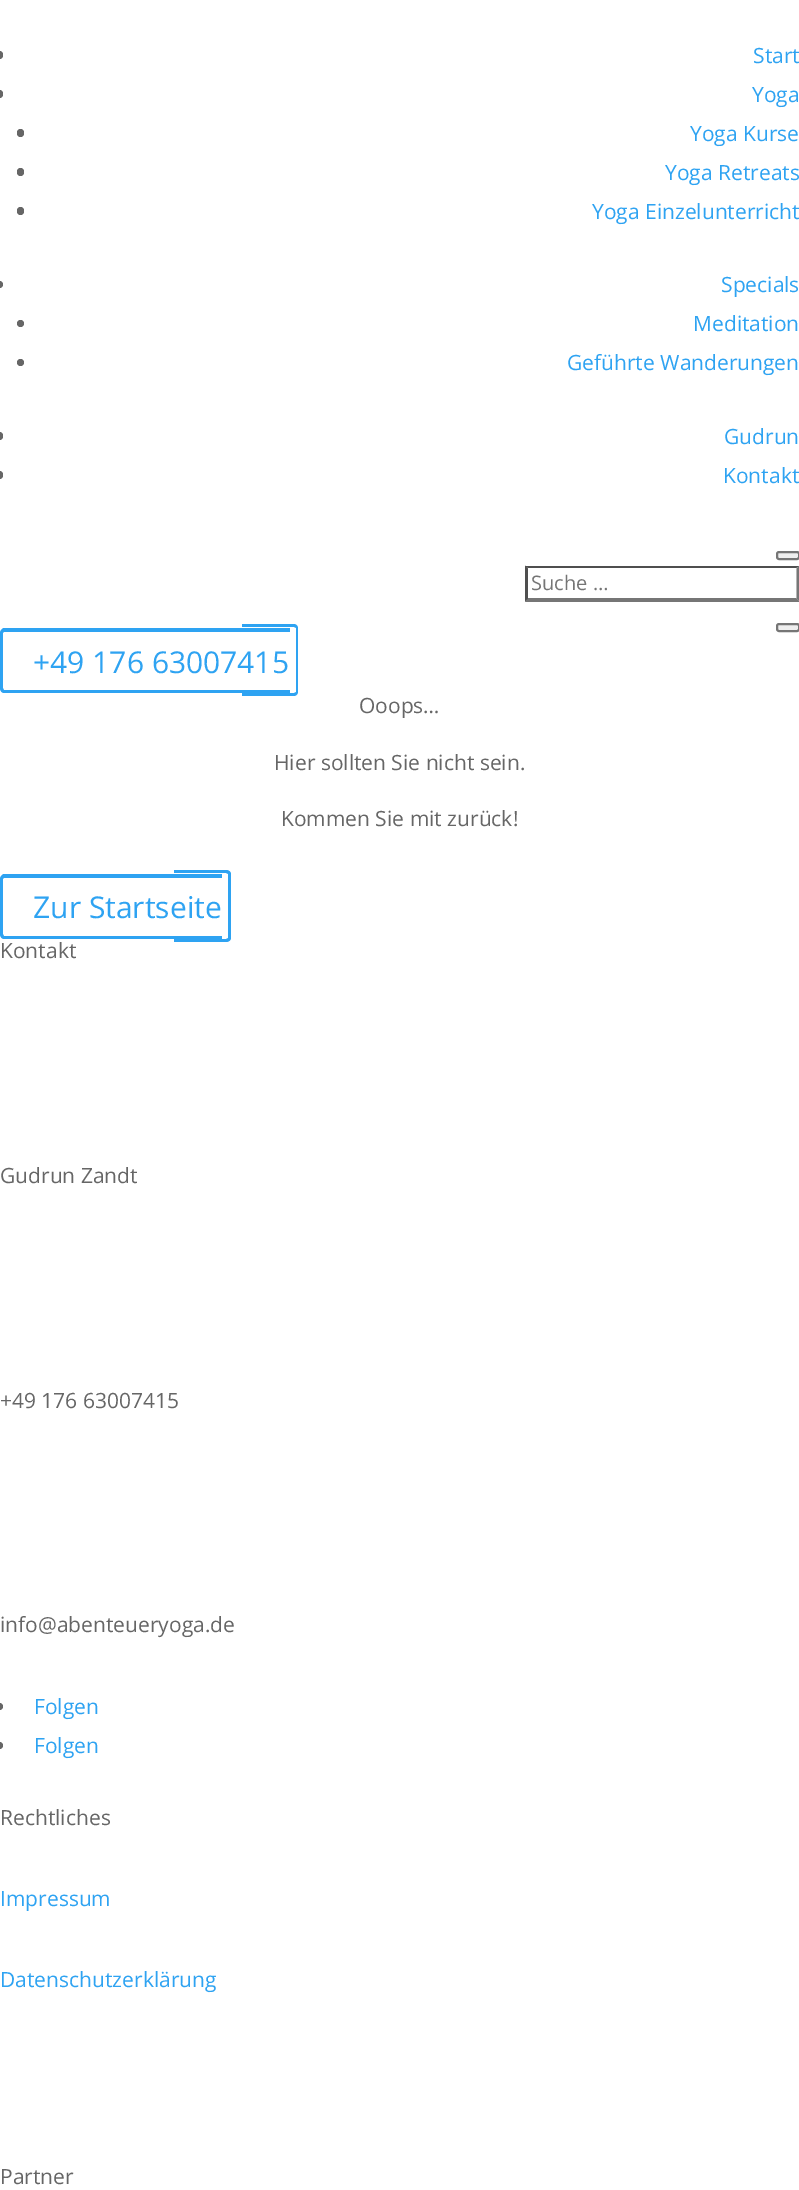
%!PS-Adobe-3.0
%%BoundingBox: 0 0 799 2190
%%LanguageLevel: 3
%%Pages: 1
%%EndComments
%%BeginProlog
/rrect { 5 dict begin { /r /h /w /y /x } { exch def } forall
  x r add y moveto x w add y 2 copy h add r arct x w add y h add x 1 index r arct
  x y h add x y r arct x y 2 copy exch w add exch r arct closepath end } def
%%EndProlog
%%BeginSetup
<< /PageSize [799 2190] >> setpagedevice
%%EndSetup
%%Page: 1 1
0 2190 translate 1 -1 scale
4 setmiterlimit
1 setgray
0 0 799 2190 rectfill
0.4 setgray
-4 51 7 8 3.5 rrect fill
-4 90 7 8 3.5 rrect fill
17 129 7 8 3.5 rrect fill
17 168 7 8 3.5 rrect fill
17 207 7 8 3.5 rrect fill
newpath -0.5 284.5 3.5 0 360 arc closepath fill
newpath 20.5 323.5 3.5 0 360 arc closepath fill
newpath 20.5 362.5 3.5 0 360 arc closepath fill
-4 432 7 8 3.5 rrect fill
-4 471 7 8 3.5 rrect fill
0.937 setgray
777 552 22 7 2 rrect gsave fill grestore
0.463 setgray
2 setlinewidth
stroke
0.31 setgray
newpath 525 566 moveto 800 566 lineto 796 568 lineto 528 568 lineto closepath fill
0.463 setgray
newpath 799.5 565.5 moveto 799.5 601.5 lineto 796.5 598.5 lineto 796.5 568.5 lineto closepath fill
newpath 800 602 moveto 525 602 lineto 528 598 lineto 796 598 lineto closepath fill
0.31 setgray
newpath 525 601.5 moveto 525 565.5 lineto 528 568.5 lineto 528 598.5 lineto closepath fill
0.937 setgray
777 624 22 7 2 rrect gsave fill grestore
0.463 setgray
stroke
0.18 0.639 0.949 setrgbcolor
newpath 4 628 moveto 290 628 lineto 290 693 lineto 4 693 lineto 2 693 0 691 0 688 curveto 0 633 lineto 0 631 2 628 4 628 curveto closepath 4 632 moveto 290 632 lineto 290 690 lineto 4 690 lineto 4 690 3 689 3 688 curveto 3 633 lineto 3 632 4 632 4 632 curveto closepath eofill
newpath 242 624 moveto 294 624 lineto 296 624 298 626 298 628 curveto 298 692 lineto 298 694 296 696 294 696 curveto 242 696 lineto closepath 242 627 moveto 294 627 lineto 295 627 296 628 296 628 curveto 296 692 lineto 296 692 295 693 294 693 curveto 242 693 lineto closepath eofill
newpath 4 874 moveto 222 874 lineto 222 939 lineto 4 939 lineto 2 939 0 937 0 934 curveto 0 879 lineto 0 877 2 874 4 874 curveto closepath 4 878 moveto 222 878 lineto 222 936 lineto 4 936 lineto 4 936 3 935 3 934 curveto 3 879 lineto 3 878 4 878 4 878 curveto closepath eofill
newpath 174 870 moveto 226 870 lineto 229 870 231 872 231 874 curveto 231 938 lineto 231 940 229 942 226 942 curveto 174 942 lineto closepath 174 873 moveto 226 873 lineto 227 873 228 874 228 874 curveto 228 938 lineto 228 938 227 939 226 939 curveto 174 939 lineto closepath eofill
0.4 setgray
newpath -0.5 1706.5 3.5 0 360 arc closepath fill
newpath -0.5 1745.5 3.5 0 360 arc closepath fill
/OpenSans-Regular [21 0 0 -21 0 0] selectfont
0.18 0.639 0.949 setrgbcolor
753 63 moveto (Start) show
752 102 moveto (Yoga) show
690 141 moveto (Yoga Kurse) show
665 180 moveto (Yoga Retreats) show
592 219 moveto (Yoga Einzelunterricht) show
721 292 moveto (Specials) show
693 331 moveto (Meditation) show
567 370 moveto (Geführte Wanderungen) show
724 444 moveto (Gudrun) show
723 483 moveto (Kontakt) show
/OpenSans-Regular [20 0 0 -20 0 0] selectfont
0.459 setgray
531 590 moveto (Suche …) show
/OpenSans-Regular [30 0 0 -30 0 0] selectfont
0.18 0.639 0.949 setrgbcolor
33 673 moveto (+49 176 63007415) show
/OpenSans-Regular [21 0 0 -21 0 0] selectfont
0.4 setgray
359 713 moveto (Ooops…) show
274 770 moveto (Hier sollten Sie nicht sein.) show
281 826 moveto (Kommen Sie mit zurück!) show
/OpenSans-Regular [30 0 0 -30 0 0] selectfont
0.18 0.639 0.949 setrgbcolor
33 918 moveto (Zur Startseite) show
/OpenSans-Regular [21 0 0 -21 0 0] selectfont
0.4 setgray
0 958 moveto (Kontakt) show
0 1183 moveto (Gudrun Zandt) show
0 1408 moveto (+49 176 63007415) show
0 1632 moveto (info@abenteueryoga.de) show
0.18 0.639 0.949 setrgbcolor
34 1714 moveto (Folgen) show
34 1753 moveto (Folgen) show
0.4 setgray
0 1825 moveto (Rechtliches) show
0.18 0.639 0.949 setrgbcolor
0 1906 moveto (Impressum) show
0 1987 moveto (Datenschutzerklärung) show
0.4 setgray
0 2184 moveto (Partner) show
showpage
%%EOF
